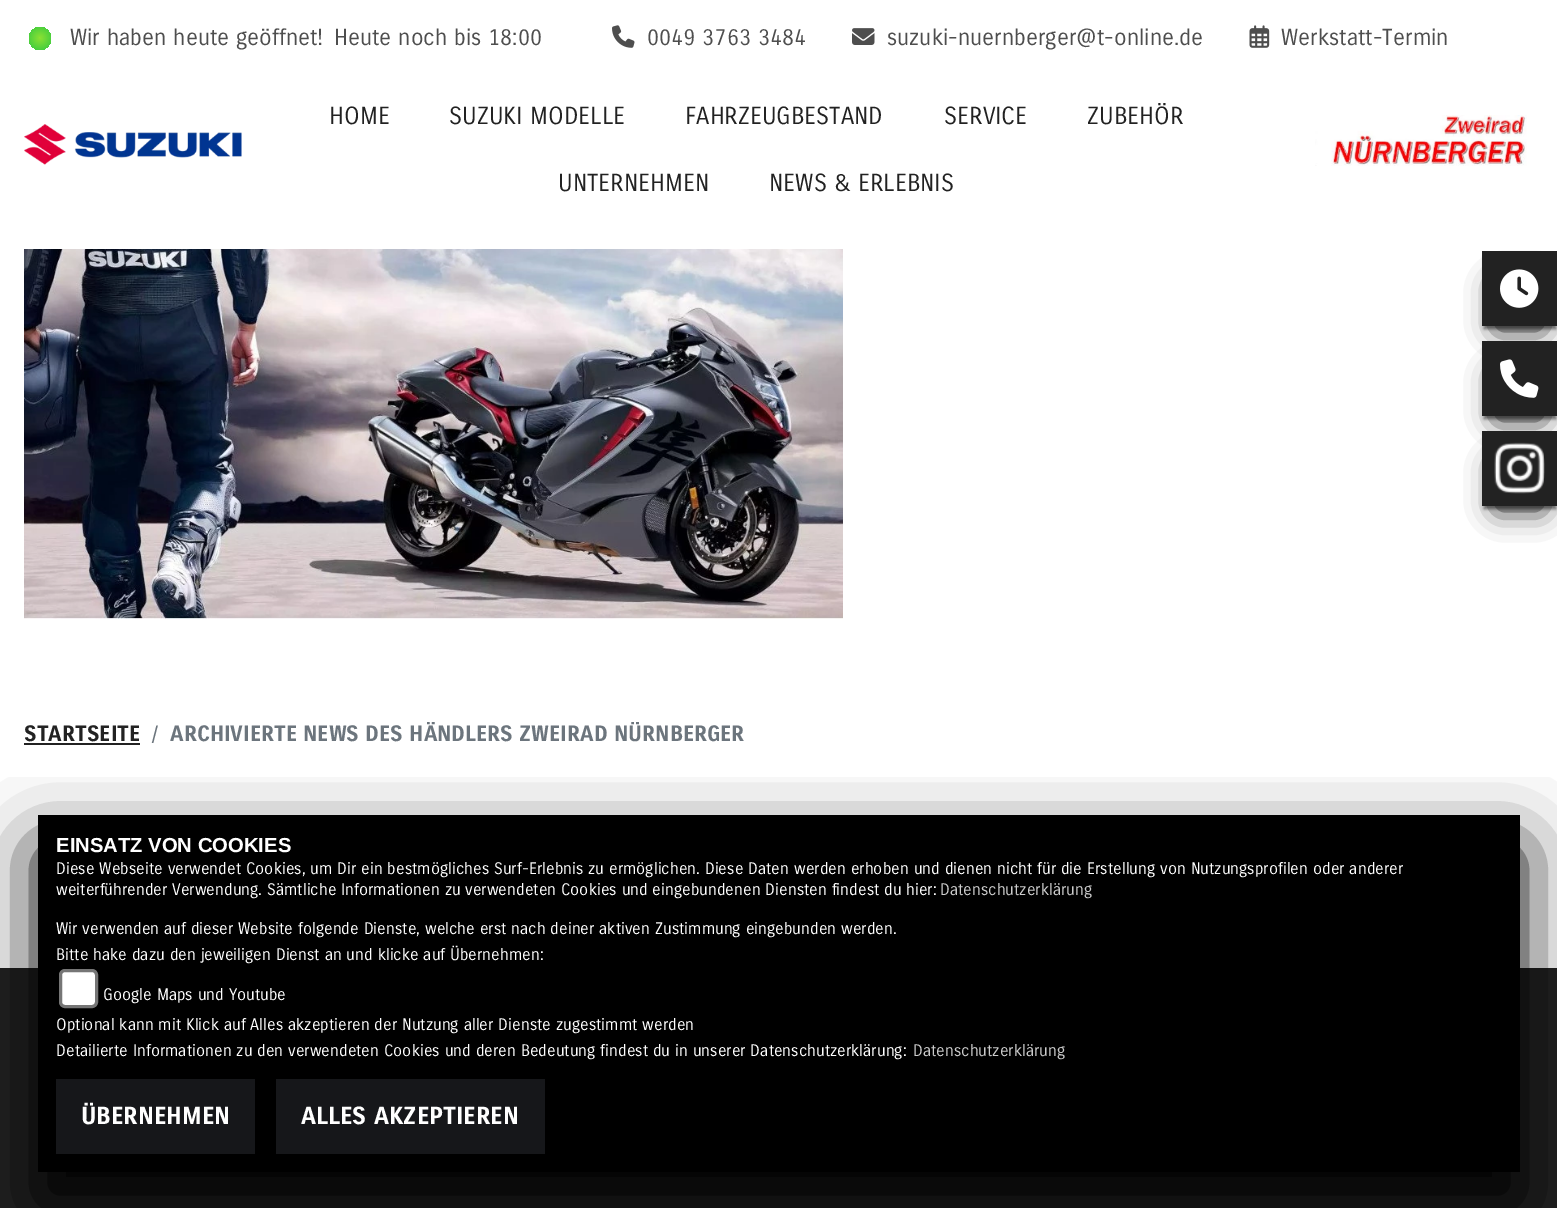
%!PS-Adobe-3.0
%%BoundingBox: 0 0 1557 1208
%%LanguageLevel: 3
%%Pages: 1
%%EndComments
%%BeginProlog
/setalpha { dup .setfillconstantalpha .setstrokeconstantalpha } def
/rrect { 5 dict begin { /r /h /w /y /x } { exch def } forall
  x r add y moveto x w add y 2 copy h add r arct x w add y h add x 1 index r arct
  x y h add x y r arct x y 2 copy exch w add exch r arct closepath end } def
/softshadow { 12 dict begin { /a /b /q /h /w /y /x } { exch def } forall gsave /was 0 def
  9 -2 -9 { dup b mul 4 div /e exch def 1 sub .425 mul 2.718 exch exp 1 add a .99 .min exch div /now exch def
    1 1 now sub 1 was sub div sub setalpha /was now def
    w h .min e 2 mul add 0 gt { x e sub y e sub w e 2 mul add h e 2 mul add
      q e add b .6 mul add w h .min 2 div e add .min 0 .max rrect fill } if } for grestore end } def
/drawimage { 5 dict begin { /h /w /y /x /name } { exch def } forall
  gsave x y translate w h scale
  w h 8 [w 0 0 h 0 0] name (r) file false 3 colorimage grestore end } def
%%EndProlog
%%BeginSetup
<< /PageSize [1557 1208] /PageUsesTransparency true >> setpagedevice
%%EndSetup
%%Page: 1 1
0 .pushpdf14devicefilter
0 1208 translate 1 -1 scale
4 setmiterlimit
1 setgray
0 0 1557 1208 rectfill
gsave 29 27 22 23 11 rrect clip newpath 40 38 translate 16 16 scale
<< /ShadingType 3 /ColorSpace /DeviceRGB /Coords [0 0 0 0 0 1] /Extend [true true] /Function << /FunctionType 2 /Domain [0 1] /C0 [0.553 0.882 0.2] /C1 [0.2 0.788 0.255] /N 1 >> >> shfill grestore
(images/1.raw) 612 25 23 23 drawimage
(images/2.raw) 852 28 23 17 drawimage
(images/3.raw) 1249 25 21 23 drawimage
(images/4.raw) 24 124 218 41 drawimage
(images/5.raw) 1315 115 212 51 drawimage
(images/6.raw) 24 249 819 370 drawimage
0 setgray
1497 284 45 45 0 15 1 softshadow
1484 257 72 72 0 1.5 0.5 softshadow
0.133 setgray
1482 251 75 75 rectfill
(images/7.raw) 1500 269 39 39 drawimage
0 setgray
1497 374 45 45 0 15 1 softshadow
1484 347 72 72 0 1.5 0.5 softshadow
0.133 setgray
1482 341 75 75 rectfill
(images/8.raw) 1500 359 39 39 drawimage
0 setgray
1497 464 45 45 0 15 1 softshadow
1484 437 72 72 0 1.5 0.5 softshadow
0.133 setgray
1482 431 75 75 rectfill
(images/9.raw) 1494 442 51 52 drawimage
24 743 116 2 rectfill
0 968 1557 240 rectfill
gsave
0 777 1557 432 rectclip
0 setgray
38 848 1482 357 0 37.5 1 softshadow
grestore
0 setgray
38 815 1482 357 rectfill
1 setgray
60.5 970.5 36 36 4.5 rrect gsave fill grestore
0.463 setgray
3 setlinewidth
stroke
0.086 0.09 0.102 setrgbcolor
56 1079 199 75 rectfill
276 1079 269 75 rectfill
/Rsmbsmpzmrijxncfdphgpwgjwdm-Regular [22.5 0 0 -22.5 0 0] selectfont
0.306 setgray
70 45 moveto (Wir haben heute geöffnet!) show
334 45 moveto (Heute noch bis 18:00) show
647 45 moveto (0049 3763 3484) show
887 45 moveto (suzuki-nuernberger@t-online.de) show
1281 45 moveto (Werkstatt-Termin) show
/Rsmbsmpzmrijxncfdphgpwgjwdm-Regular [24 0 0 -24 0 0] selectfont
0.133 setgray
329 124 moveto (HOME) show
449 124 moveto (SUZUKI MODELLE) show
685 124 moveto (FAHRZEUGBESTAND) show
944 124 moveto (SERVICE) show
1087 124 moveto (ZUBEHÖR) show
558 191 moveto (UNTERNEHMEN) show
769 191 moveto (NEWS & ERLEBNIS) show
/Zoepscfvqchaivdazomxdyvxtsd-Bold [21.6 0 0 -21.6 0 0] selectfont
24 741 moveto (STARTSEITE) show
/Rsmbsmpzmrijxncfdphgpwgjwdm-Regular [21.6 0 0 -21.6 0 0] selectfont
0.424 0.459 0.49 setrgbcolor
152 741 moveto (/) show
/Zoepscfvqchaivdazomxdyvxtsd-Bold [21.6 0 0 -21.6 0 0] selectfont
170 741 moveto (ARCHIVIERTE NEWS DES HÄNDLERS ZWEIRAD NÜRNBERGER) show
/LiberationSans-Bold [20.25 0 0 -20.25 0 0] selectfont
1 setgray
56 852 moveto (EINSATZ VON COOKIES) show
/Rsmbsmpzmrijxncfdphgpwgjwdm-Regular [16.2 0 0 -16.2 0 0] selectfont
56 874 moveto (Diese Webseite verwendet Cookies, um Dir ein bestmögliches Surf-Erlebnis zu ermöglichen. Diese Daten werden erhoben und dienen nicht für die Erstellung von Nutzungsprofilen oder anderer) show
56 895 moveto -0.1 0 32 (weiterführender Verwendung. Sämtliche Informationen zu verwendeten Cookies und eingebundenen Diensten findest du hier:) widthshow
0.8 setgray
940 895 moveto (Datenschutzerklärung) show
1 setgray
56 934 moveto (Wir verwenden auf dieser Website folgende Dienste, welche erst nach deiner aktiven Zustimmung eingebunden werden.) show
56 960 moveto (Bitte hake dazu den jeweiligen Dienst an und klicke auf Übernehmen:) show
103 1000 moveto (Google Maps und Youtube) show
56 1030 moveto (Optional kann mit Klick auf Alles akzeptieren der Nutzung aller Dienste zugestimmt werden) show
56 1056 moveto (Detailierte Informationen zu den verwendeten Cookies und deren Bedeutung findest du in unserer Datenschutzerklärung:) show
0.8 setgray
913 1056 moveto (Datenschutzerklärung) show
/Zoepscfvqchaivdazomxdyvxtsd-Bold [24 0 0 -24 0 0] selectfont
1 setgray
81 1124 moveto (ÜBERNEHMEN) show
301 1124 moveto (ALLES AKZEPTIEREN) show
.poppdf14devicefilter showpage
%%EOF
